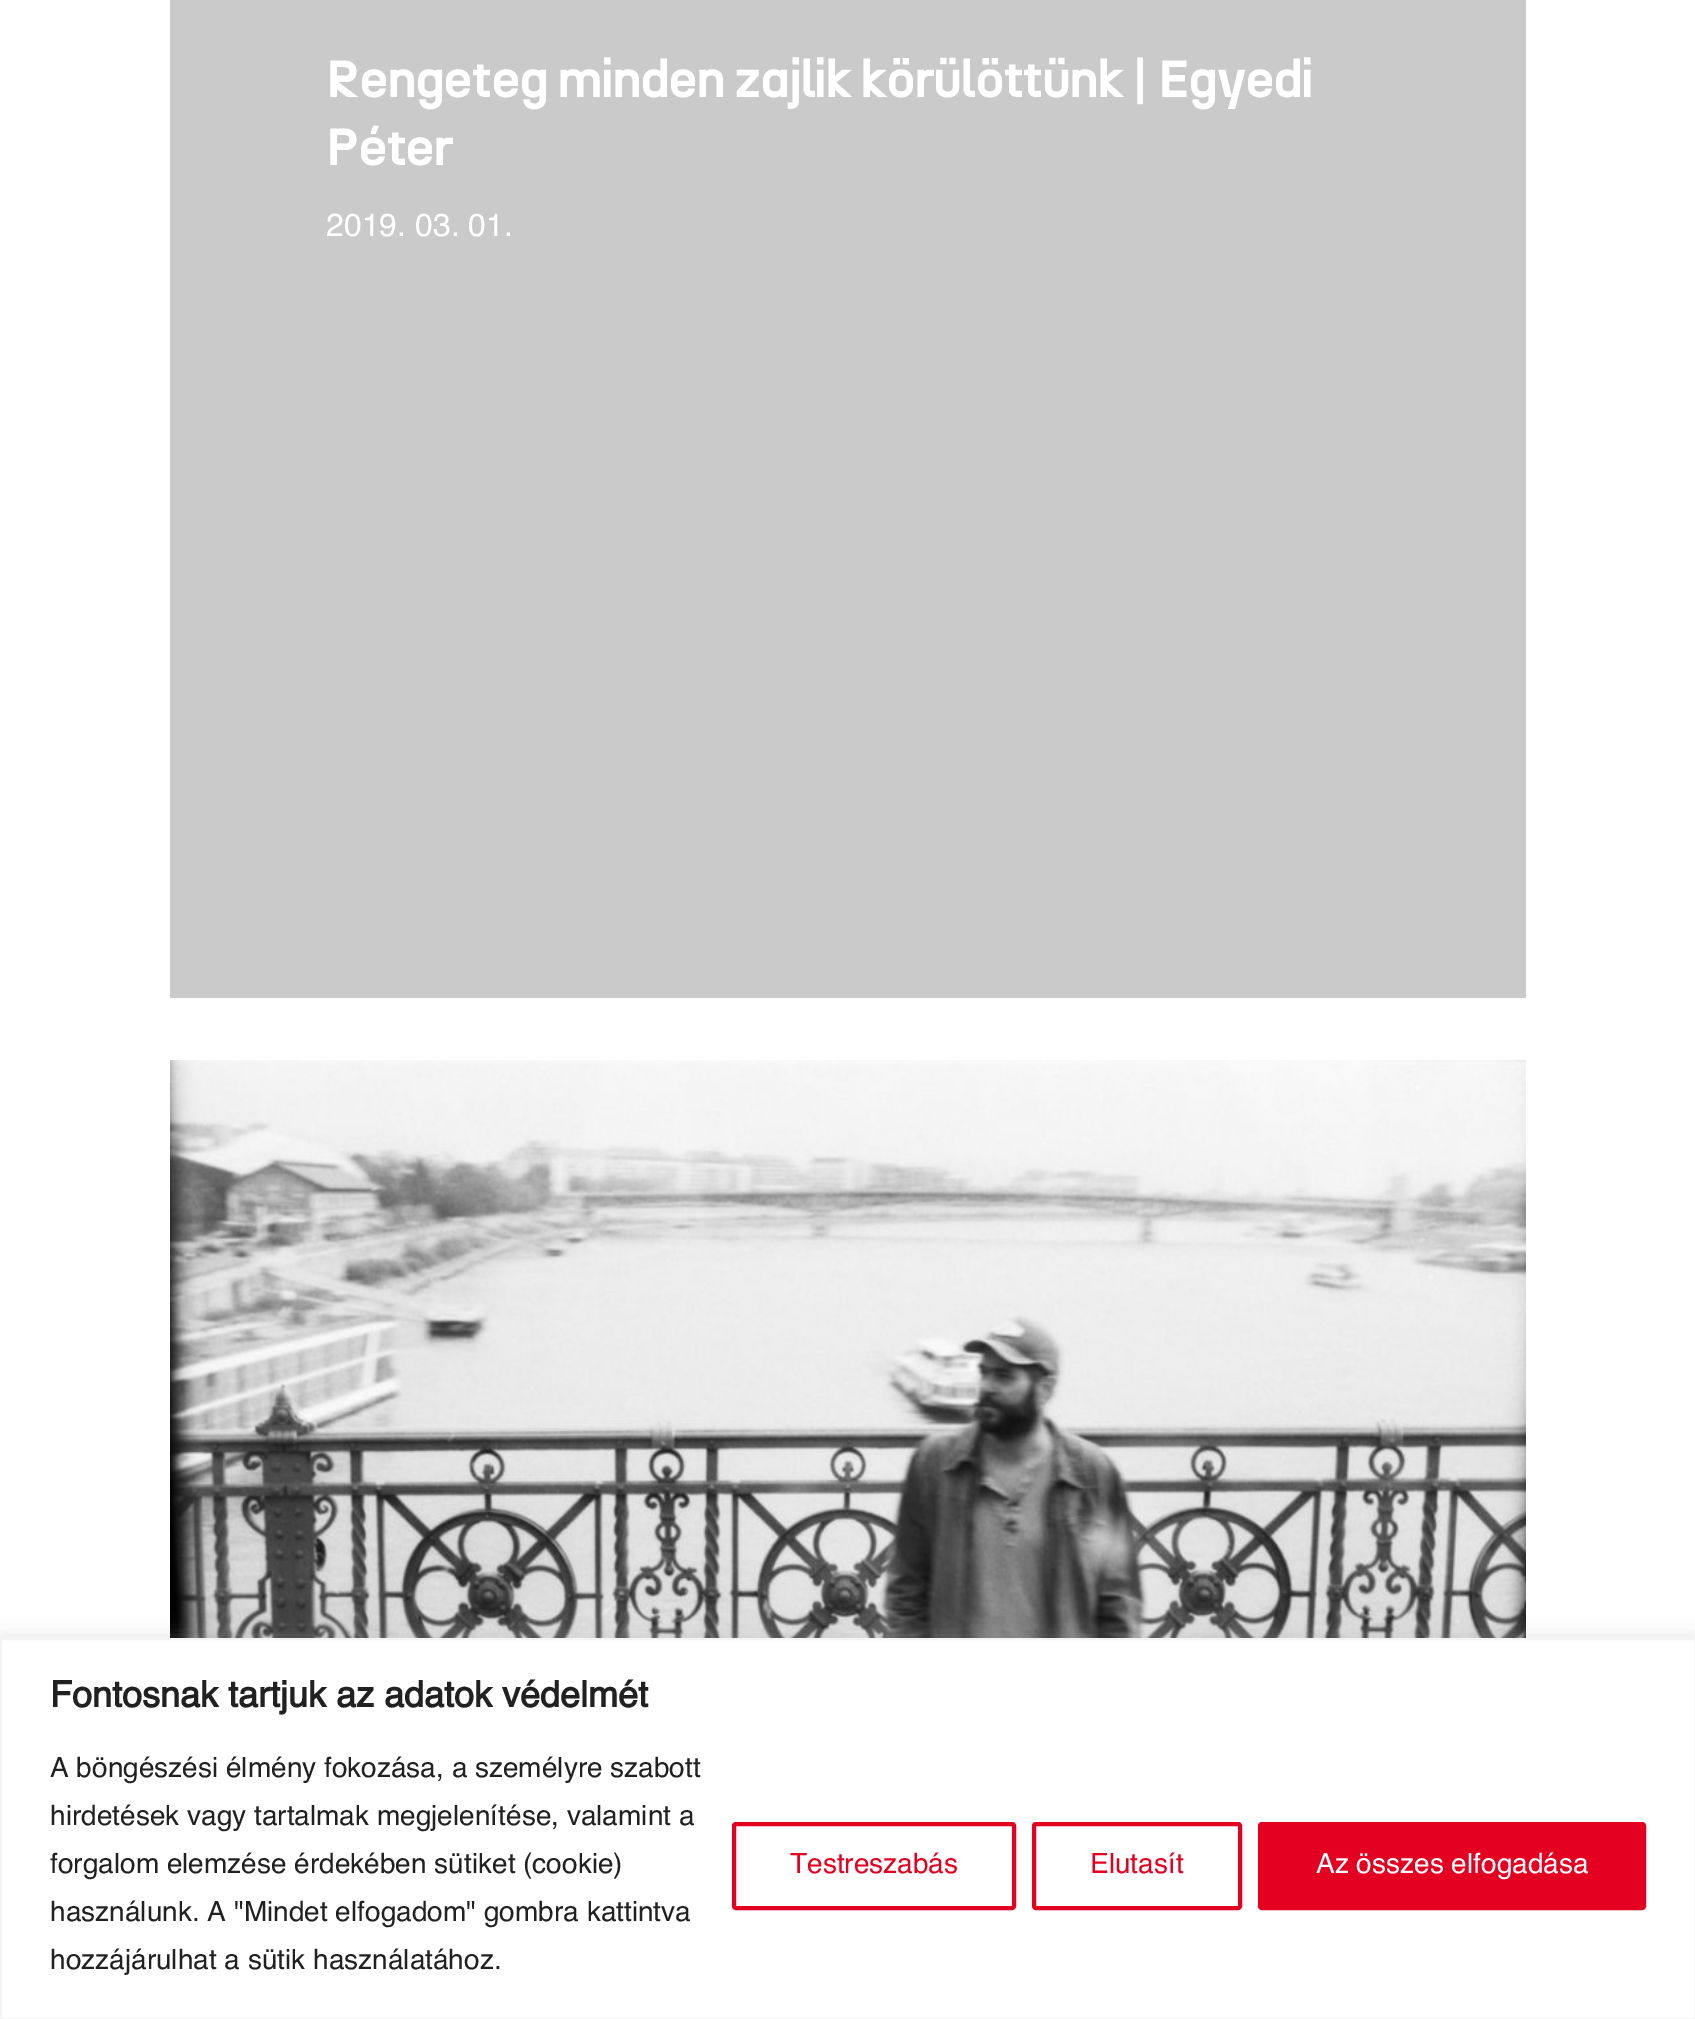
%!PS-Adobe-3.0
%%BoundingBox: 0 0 1695 2019
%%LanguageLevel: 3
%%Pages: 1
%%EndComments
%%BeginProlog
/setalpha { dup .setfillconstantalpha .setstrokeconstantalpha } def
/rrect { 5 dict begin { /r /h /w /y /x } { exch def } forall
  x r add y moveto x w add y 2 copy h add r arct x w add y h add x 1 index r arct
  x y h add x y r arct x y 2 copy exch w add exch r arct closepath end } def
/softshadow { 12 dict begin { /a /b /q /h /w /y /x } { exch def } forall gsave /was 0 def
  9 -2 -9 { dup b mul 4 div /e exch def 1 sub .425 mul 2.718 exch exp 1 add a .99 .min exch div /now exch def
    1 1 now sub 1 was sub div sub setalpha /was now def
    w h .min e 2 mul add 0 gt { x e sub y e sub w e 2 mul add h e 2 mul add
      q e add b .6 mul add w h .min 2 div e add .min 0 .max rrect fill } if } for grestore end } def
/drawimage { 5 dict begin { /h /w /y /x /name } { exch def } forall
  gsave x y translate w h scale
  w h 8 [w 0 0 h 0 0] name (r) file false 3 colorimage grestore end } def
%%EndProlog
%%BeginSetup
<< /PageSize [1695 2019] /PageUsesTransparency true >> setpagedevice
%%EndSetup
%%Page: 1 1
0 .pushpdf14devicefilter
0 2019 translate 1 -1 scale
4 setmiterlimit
1 setgray
0 0 1695 2019 rectfill
0.792 setgray
170 0 1356 998 rectfill
(images/1.raw) 170 1060 1356 578 drawimage
0.675 0.671 0.671 setrgbcolor
0 1636 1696 382 0 10 0.3 softshadow
1 setgray
newpath 1 1639 moveto 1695 1639 lineto 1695 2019 lineto 1 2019 lineto closepath gsave fill grestore
0.957 setgray
2 setlinewidth
stroke
0.89 0 0.125 setrgbcolor
4 setlinewidth
734 1824 280 84 2 rrect stroke
1034 1824 206 84 2 rrect stroke
1260 1824 384 84 2 rrect gsave fill grestore
stroke
/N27-Bold [52 0 0 -52 0 0] selectfont
1 setgray
326 97 moveto (Rengeteg minden zajlik körülöttünk | Egyedi) show
326 165 moveto (Péter) show
/Helvetica-Regular [32 0 0 -32 0 0] selectfont
326 236 moveto (2019. 03. 01.) show
/Helvetica-Bold [36 0 0 -36 0 0] selectfont
0.129 setgray
50 1707 moveto (Fontosnak tartjuk az adatok védelmét) show
/Helvetica-Regular [28 0 0 -28 0 0] selectfont
50 1777 moveto (A böngészési élmény fokozása, a személyre szabott) show
50 1825 moveto (hirdetések vagy tartalmak megjelenítése, valamint a) show
50 1873 moveto (forgalom elemzése érdekében sütiket \(cookie\)) show
50 1921 moveto (használunk. A "Mindet elfogadom" gombra kattintva) show
50 1969 moveto (hozzájárulhat a sütik használatához.) show
0.89 0 0.125 setrgbcolor
790 1873 moveto (Testreszabás) show
1090 1873 moveto (Elutasít) show
1 setgray
1316 1873 moveto (Az összes elfogadása) show
.poppdf14devicefilter showpage
%%EOF
